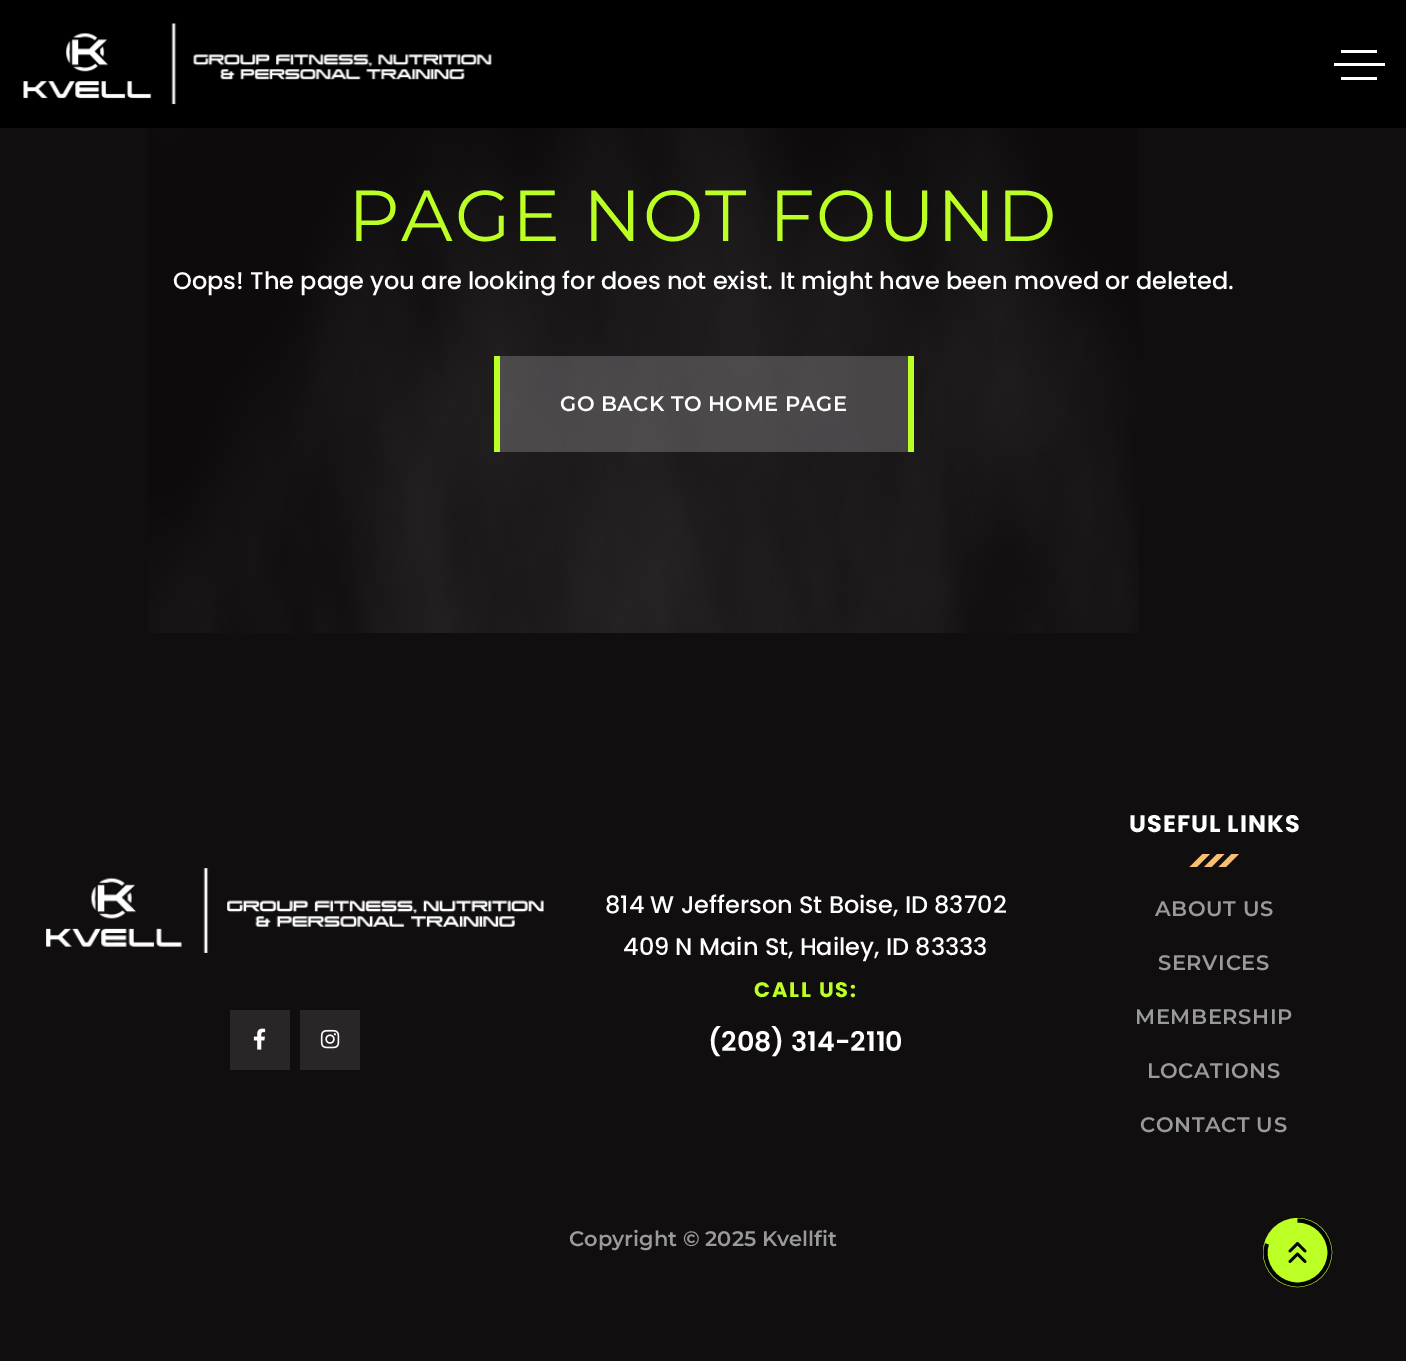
%!PS-Adobe-3.0
%%BoundingBox: 0 0 1406 1361
%%LanguageLevel: 3
%%Pages: 1
%%EndComments
%%BeginProlog
/setalpha { dup .setfillconstantalpha .setstrokeconstantalpha } def
/drawimage { 5 dict begin { /h /w /y /x /name } { exch def } forall
  gsave x y translate w h scale
  w h 8 [w 0 0 h 0 0] name (r) file false 3 colorimage grestore end } def
%%EndProlog
%%BeginSetup
<< /PageSize [1406 1361] /PageUsesTransparency true >> setpagedevice
%%EndSetup
%%Page: 1 1
0 .pushpdf14devicefilter
0 1361 translate 1 -1 scale
4 setmiterlimit
0.067 0.055 0.063 setrgbcolor
0 0 1406 1361 rectfill
0 setgray
0 0 1406 128 rectfill
(images/1.raw) 23 23 469 82 drawimage
1 setgray
1341 50 36 3 rectfill
1334 63 51 3 rectfill
1341 77 36 3 rectfill
(images/2.raw) 148 128 991 505 drawimage
0.2 setalpha
500 356 408 96 rectfill
1 setalpha
0.733 1 0.145 setrgbcolor
494 356 6 96 rectfill
908 356 6 96 rectfill
(images/3.raw) 46 868 498 85 drawimage
0.161 0.149 0.157 setrgbcolor
230 1010 60 60 rectfill
(images/4.raw) 253 1028 13 22 drawimage
300 1010 60 60 rectfill
(images/5.raw) 320 1029 20 20 drawimage
gsave
1188 854 53 15 rectclip
0.973 0.749 0.451 setrgbcolor
newpath 1210.5 853.5 moveto 1203 853.5 lineto 1189.5 867 lineto 1197 867 lineto closepath fill
newpath 1225 853.5 moveto 1217.5 853.5 lineto 1204 867 lineto 1211.5 867 lineto closepath fill
newpath 1239.5 853.5 moveto 1232 853.5 lineto 1218.5 867 lineto 1226 867 lineto closepath fill
grestore
0.733 1 0.145 setrgbcolor
newpath 1297.5 1252.5 33 0 360 arc closepath gsave fill grestore
3 setlinewidth
stroke
0 setgray
3.9 setlinewidth
newpath 1297.5 1220.5 moveto 1315 1220.5 1329.5 1235 1329.5 1252.5 curveto 1329.5 1270 1315 1284.5 1297.5 1284.5 curveto 1280 1284.5 1265.5 1270 1265.5 1252.5 curveto 1265.5 1249.5 1266 1246.5 1267 1244 curveto stroke
(images/6.raw) 1288 1242 19 21 drawimage
/Montserrat-Regular [72 0 0 -72 0 0] selectfont
0.733 1 0.145 setrgbcolor
348 241 moveto 1.75 0 (PAGE NOT FOUND) ashow
/Poppins-Medium [24 0 0 -24 0 0] selectfont
1 setgray
173 289 moveto (Oops! The page you are looking for does not exist. It might have been moved or deleted.) show
/Montserrat-SemiBold [21 0 0 -21 0 0] selectfont
560 411 moveto 0.4 0 (GO BACK TO HOME PAGE) ashow
/Poppins-Medium [24 0 0 -24 0 0] selectfont
605 913 moveto (814 W Jefferson St Boise, ID 83702) show
623 955 moveto (409 N Main St, Hailey, ID 83333) show
/Poppins-Bold [21 0 0 -21 0 0] selectfont
0.733 1 0.145 setrgbcolor
754 997 moveto 1.75 0 (CALL US:) ashow
/Poppins-SemiBold [27 0 0 -27 0 0] selectfont
1 setgray
708 1051 moveto (\(208\) 314-2110) show
/Poppins-Bold [24 0 0 -24 0 0] selectfont
1129 832 moveto 1 0 (USEFUL LINKS) ashow
/Montserrat-SemiBold [21 0 0 -21 0 0] selectfont
0.604 setgray
1155 916 moveto 0.6 0 (ABOUT US) ashow
1158 970 moveto 0.6 0 (SERVICES) ashow
1135 1024 moveto 0.6 0 (MEMBERSHIP) ashow
1147 1078 moveto 0.6 0 (LOCATIONS) ashow
1140 1132 moveto 0.6 0 (CONTACT US) ashow
569 1246 moveto (Copyright © 2025 Kvellfit) show
.poppdf14devicefilter showpage
%%EOF
